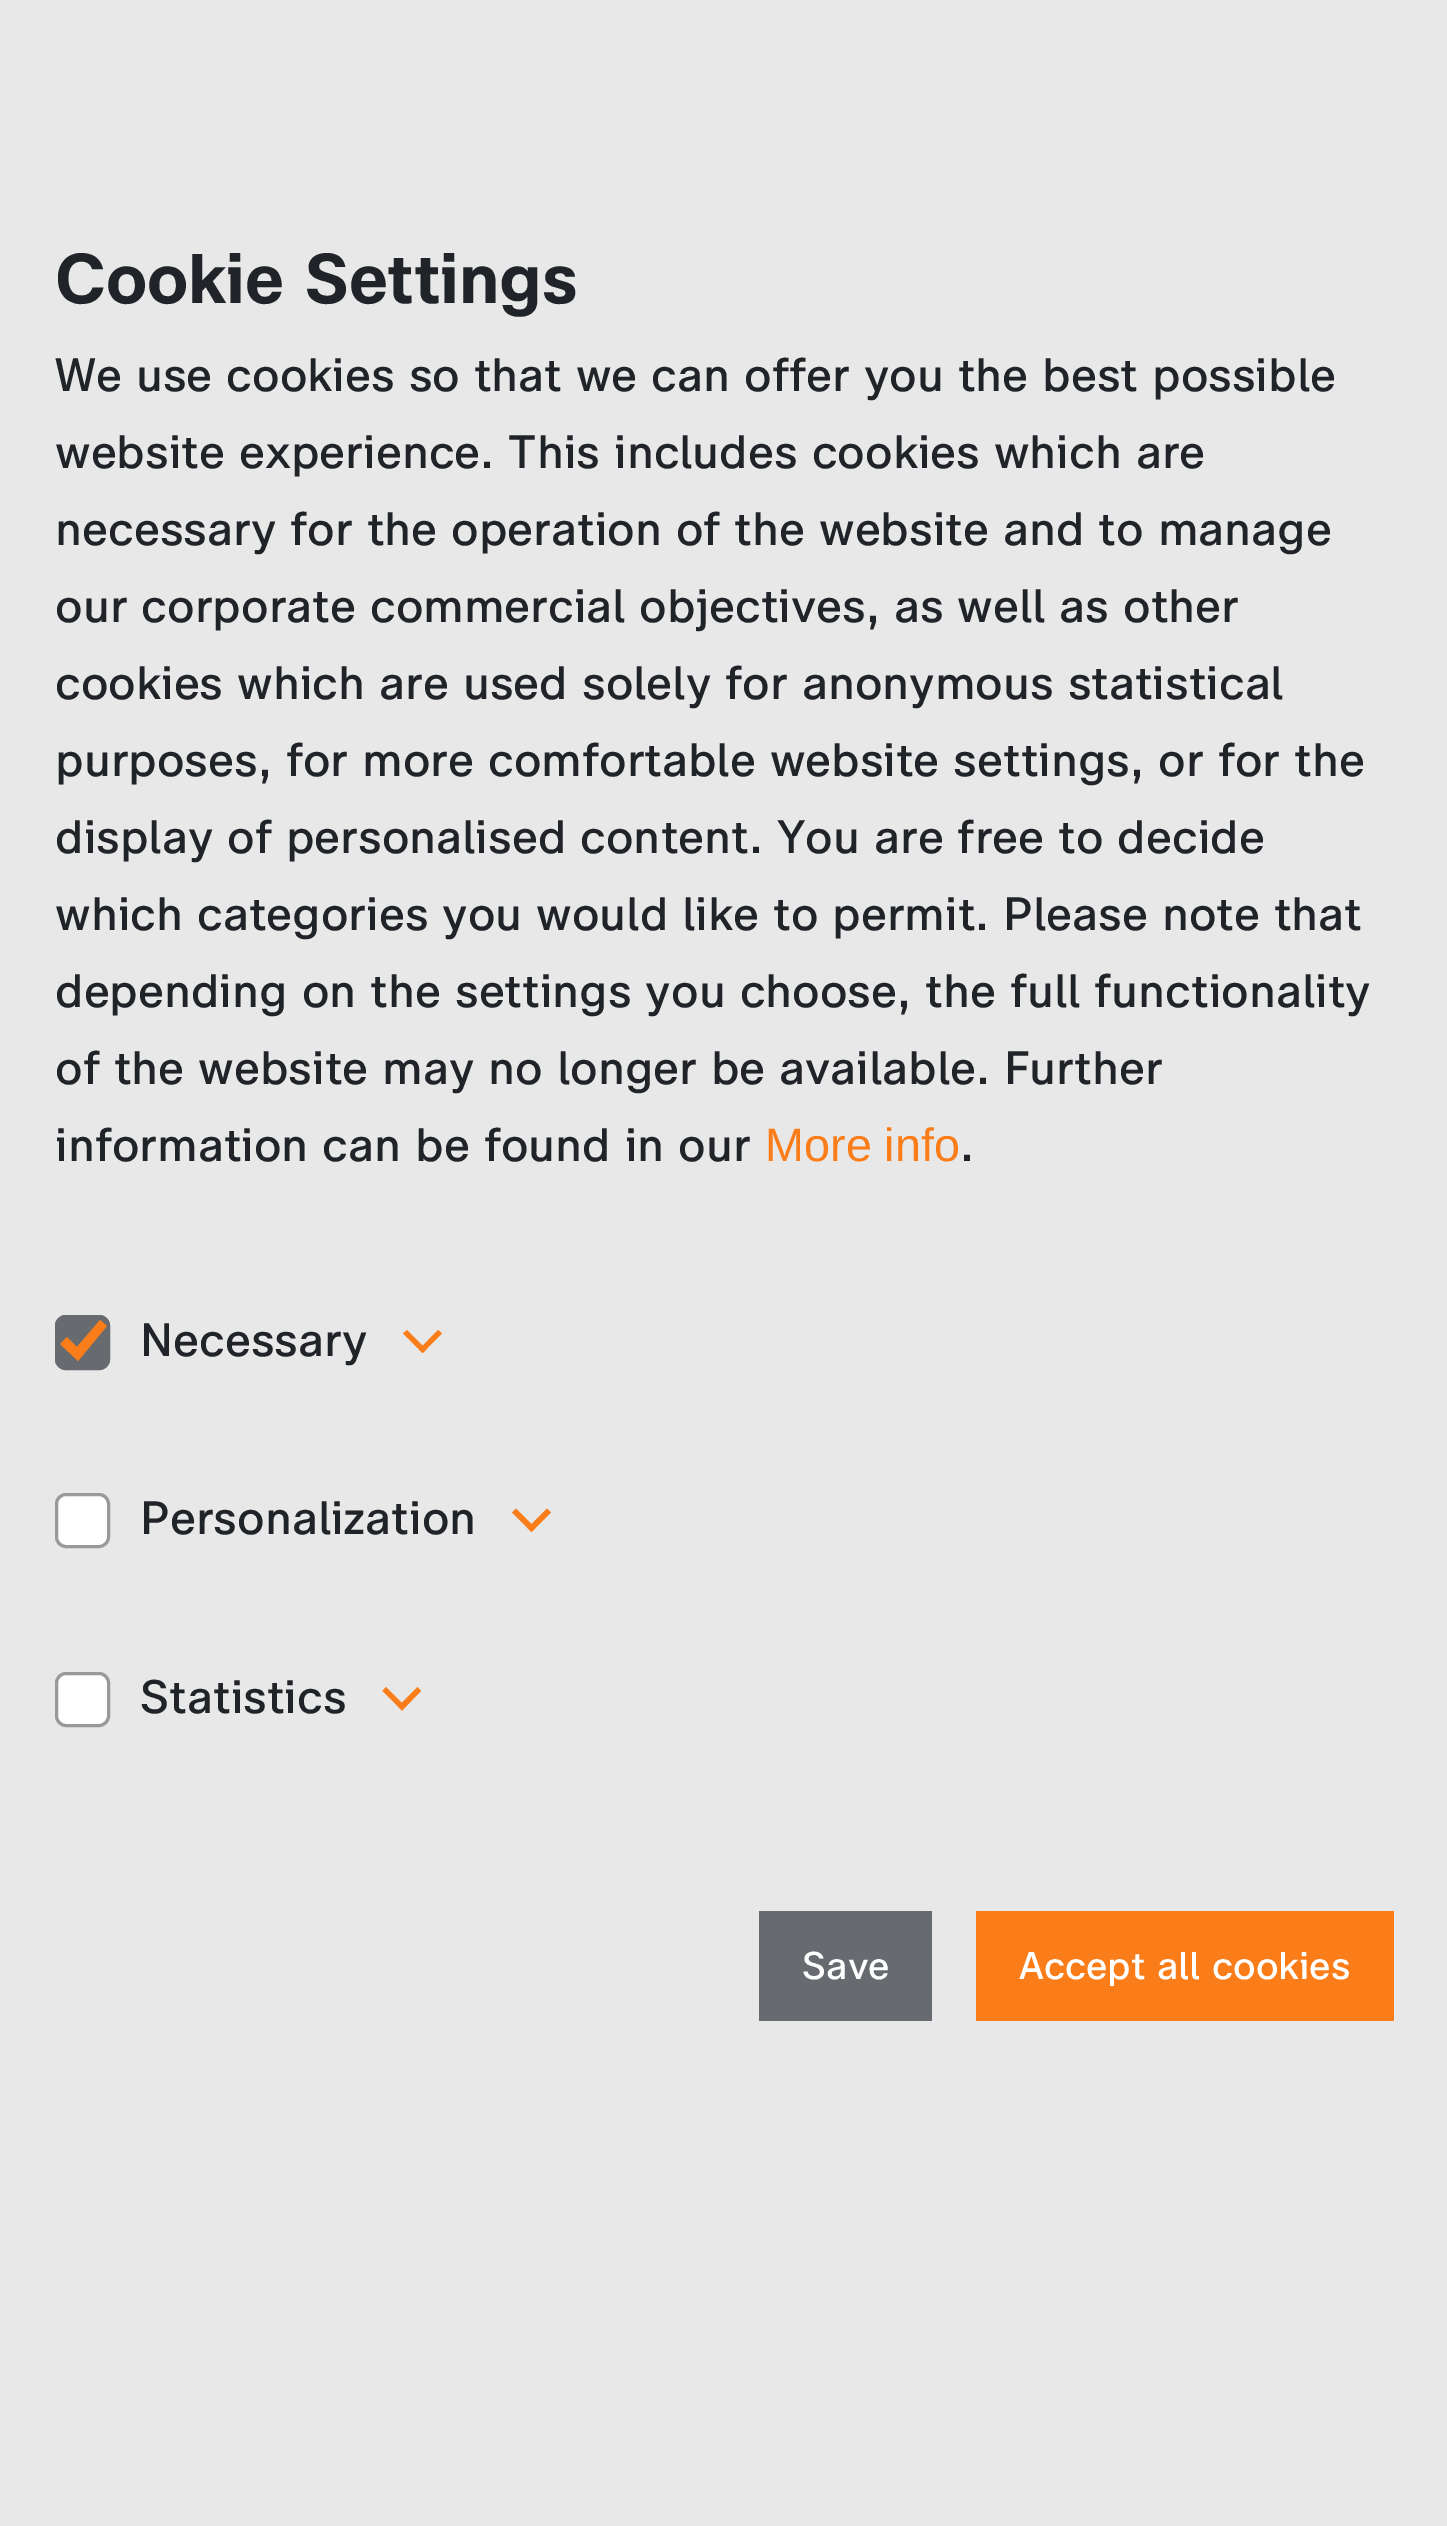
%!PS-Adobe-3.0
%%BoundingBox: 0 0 1447 2526
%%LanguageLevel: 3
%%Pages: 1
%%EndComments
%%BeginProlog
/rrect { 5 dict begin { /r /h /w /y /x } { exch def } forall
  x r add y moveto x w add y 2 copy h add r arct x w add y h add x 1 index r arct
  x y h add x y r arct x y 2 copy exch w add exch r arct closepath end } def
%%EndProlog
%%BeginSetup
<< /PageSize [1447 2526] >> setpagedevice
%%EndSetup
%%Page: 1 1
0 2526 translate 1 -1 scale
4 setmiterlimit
0.91 setgray
0 0 1447 2526 rectfill
0.404 0.416 0.435 setrgbcolor
55 1315 55 55 11 rrect fill
0.98 0.49 0.098 setrgbcolor
newpath 78 1361 moveto 60 1344 lineto 67 1337 lineto 77 1347 lineto 100 1320 lineto 107 1326 lineto closepath fill
0.404 0.416 0.435 setrgbcolor
3 setlinewidth
56.5 1316.5 52 52 9.5 rrect stroke
0.98 0.49 0.098 setrgbcolor
newpath 438 1330 moveto 442 1333.5 lineto 422.5 1353 lineto 419 1349.5 lineto closepath fill
newpath 407 1330 moveto 426.5 1349.5 lineto 422.5 1353 lineto 403 1333.5 lineto closepath fill
1 setgray
56.5 1494.5 52 52 9.5 rrect gsave fill grestore
0.6 setgray
stroke
0.98 0.49 0.098 setrgbcolor
newpath 547 1508.5 moveto 551 1512.5 lineto 531.5 1532 lineto 527.5 1528 lineto closepath fill
newpath 516 1508.5 moveto 535.5 1528 lineto 531.5 1532 lineto 512 1512.5 lineto closepath fill
1 setgray
56.5 1673.5 52 52 9.5 rrect gsave fill grestore
0.6 setgray
stroke
0.98 0.49 0.098 setrgbcolor
newpath 417.5 1687 moveto 421 1691 lineto 402 1710.5 lineto 398 1706.5 lineto closepath fill
newpath 386 1687 moveto 405.5 1706.5 lineto 402 1710.5 lineto 382.5 1691 lineto closepath fill
0.404 0.416 0.435 setrgbcolor
759 1911 173 110 rectfill
0.98 0.49 0.098 setrgbcolor
976 1911 418 110 rectfill
/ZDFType-Bold [70 0 0 -70 0 0] selectfont
0.125 0.137 0.157 setrgbcolor
55 303 moveto (Cookie Settings) show
/ZDFType-Medium [46.75 0 0 -46.75 0 0] selectfont
55 391 moveto (We use cookies so that we can offer you the best possible) show
55 468 moveto (website experience. This includes cookies which are) show
55 545 moveto (necessary for the operation of the website and to manage) show
55 622 moveto (our corporate commercial objectives, as well as other) show
55 699 moveto (cookies which are used solely for anonymous statistical) show
55 776 moveto (purposes, for more comfortable website settings, or for the) show
55 853 moveto (display of personalised content. You are free to decide) show
55 930 moveto (which categories you would like to permit. Please note that) show
55 1007 moveto (depending on the settings you choose, the full functionality) show
55 1084 moveto (of the website may no longer be available. Further) show
55 1161 moveto (information can be found in our) show
/LiberationSans-Regular [46.75 0 0 -46.75 0 0] selectfont
0.98 0.49 0.098 setrgbcolor
765 1161 moveto (More info) show
/ZDFType-Medium [46.75 0 0 -46.75 0 0] selectfont
0.125 0.137 0.157 setrgbcolor
960 1161 moveto (.) show
140 1356 moveto (Necessary) show
140 1534 moveto (Personalization) show
140 1713 moveto (Statistics) show
/ZDFType-Medium [38.5 0 0 -38.5 0 0] selectfont
1 setgray
802 1979 moveto (Save) show
1019 1979 moveto (Accept all cookies) show
showpage
%%EOF
